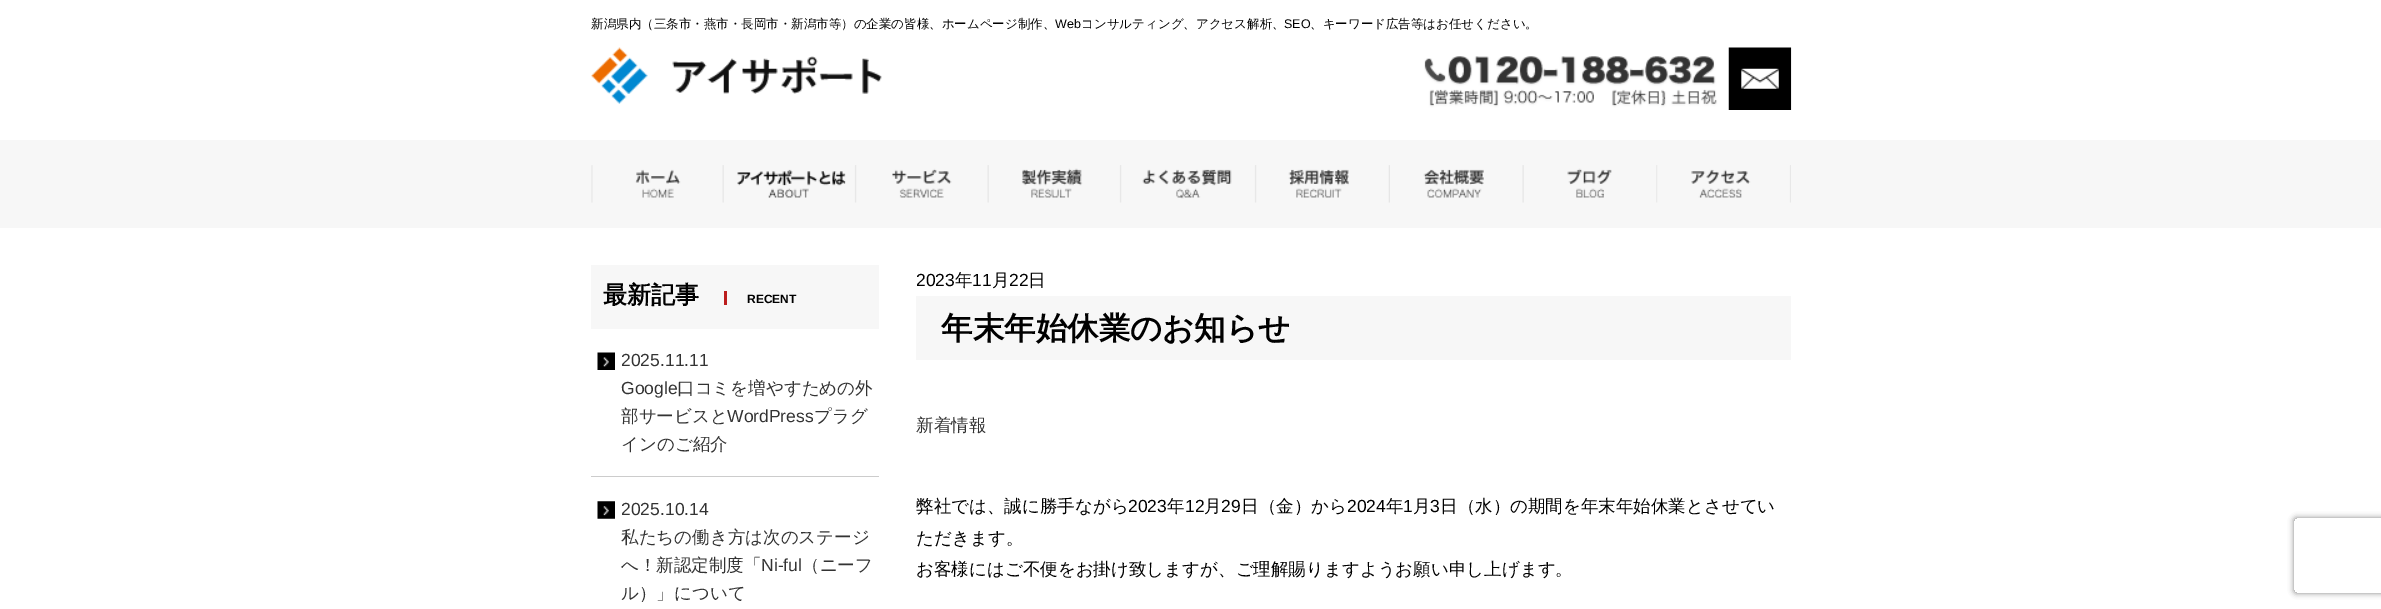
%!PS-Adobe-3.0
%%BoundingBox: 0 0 2381 609
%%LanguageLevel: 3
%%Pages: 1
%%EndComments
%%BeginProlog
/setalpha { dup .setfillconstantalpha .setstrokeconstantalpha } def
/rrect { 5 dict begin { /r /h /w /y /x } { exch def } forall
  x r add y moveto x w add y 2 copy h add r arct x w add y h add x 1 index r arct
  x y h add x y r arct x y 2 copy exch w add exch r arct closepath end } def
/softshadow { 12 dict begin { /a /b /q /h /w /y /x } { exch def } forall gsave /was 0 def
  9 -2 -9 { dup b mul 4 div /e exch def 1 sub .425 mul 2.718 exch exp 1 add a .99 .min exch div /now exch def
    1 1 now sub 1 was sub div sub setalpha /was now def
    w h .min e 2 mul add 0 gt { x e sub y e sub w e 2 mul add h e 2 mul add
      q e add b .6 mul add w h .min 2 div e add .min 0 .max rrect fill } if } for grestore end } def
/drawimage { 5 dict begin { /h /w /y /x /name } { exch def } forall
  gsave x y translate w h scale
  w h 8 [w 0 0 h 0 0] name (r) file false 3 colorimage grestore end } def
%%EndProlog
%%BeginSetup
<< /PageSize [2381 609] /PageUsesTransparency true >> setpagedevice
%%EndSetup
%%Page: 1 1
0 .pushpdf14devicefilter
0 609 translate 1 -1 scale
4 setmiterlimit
1 setgray
0 0 2381 609 rectfill
(images/1.raw) 591 47 291 57 drawimage
(images/2.raw) 1424 47 368 63 drawimage
0.969 setgray
0 140 2381 88 rectfill
(images/3.raw) 591 165 133 38 drawimage
(images/4.raw) 737 165 120 38 drawimage
(images/5.raw) 892 165 97 38 drawimage
(images/6.raw) 1021 165 101 38 drawimage
(images/7.raw) 1142 165 115 38 drawimage
(images/8.raw) 1288 165 102 38 drawimage
(images/9.raw) 1423 165 101 38 drawimage
(images/10.raw) 1567 165 91 38 drawimage
(images/11.raw) 1657 165 134 38 drawimage
591 265 288 64 rectfill
0.737 0.118 0.118 setrgbcolor
724 291 3 14 rectfill
0.8 setgray
591 476 288 1 rectfill
(images/12.raw) 597 352 18 18 drawimage
(images/13.raw) 597 501 18 18 drawimage
0.969 setgray
916 296 875 64 rectfill
gsave
newpath 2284 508 moveto 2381 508 lineto 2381 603 lineto 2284 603 lineto closepath 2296.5 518 moveto 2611.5 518 lineto 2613 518 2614 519 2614 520.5 curveto 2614 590.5 lineto 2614 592 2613 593 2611.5 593 curveto 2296.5 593 lineto 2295 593 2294 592 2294 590.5 curveto 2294 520.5 lineto 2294 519 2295 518 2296.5 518 curveto closepath eoclip newpath
0.502 setgray
2294 518 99 75 2.5 3 1 softshadow
grestore
/WenQuanYiZenHei-Medium [12.5 0 0 -12.5 0 0] selectfont
0 setgray
591 28 moveto (新潟県内（三条市・燕市・長岡市・新潟市等）の企業の皆様、ホームページ制作、) show
/LiberationSans-Regular [12.5 0 0 -12.5 0 0] selectfont
1055 28 moveto (Web) show
/WenQuanYiZenHei-Medium [12.5 0 0 -12.5 0 0] selectfont
1081 28 moveto (コンサルティング、アクセス解析、) show
/LiberationSans-Regular [12.5 0 0 -12.5 0 0] selectfont
1284 28 moveto (SEO) show
/WenQuanYiZenHei-Medium [12.5 0 0 -12.5 0 0] selectfont
1310 28 moveto (、キーワード広告等はお任せください。) show
/WenQuanYiZenHei-Bold [24 0 0 -24 0 0] selectfont
603 303 moveto (最新記事) show
/LiberationSans-Bold [12 0 0 -12 0 0] selectfont
747 303 moveto (RECENT) show
/LiberationSans-Regular [17.5 0 0 -17.5 0 0] selectfont
0.2 setgray
621 366 moveto (2025.11.11) show
621 394 moveto (Google) show
/WenQuanYiZenHei-Medium [17.5 0 0 -17.5 0 0] selectfont
677 394 moveto (口コミを増やすための外) show
621 422 moveto (部サービスと) show
/LiberationSans-Regular [17.5 0 0 -17.5 0 0] selectfont
727 422 moveto (WordPress) show
/WenQuanYiZenHei-Medium [17.5 0 0 -17.5 0 0] selectfont
814 422 moveto (プラグ) show
621 450 moveto (インのご紹介) show
/LiberationSans-Regular [17.5 0 0 -17.5 0 0] selectfont
621 515 moveto (2025.10.14) show
/WenQuanYiZenHei-Medium [17.5 0 0 -17.5 0 0] selectfont
621 543 moveto (私たちの働き方は次のステージ) show
621 571 moveto (へ！新認定制度「) show
/LiberationSans-Regular [17.5 0 0 -17.5 0 0] selectfont
761 571 moveto (Ni-ful) show
/WenQuanYiZenHei-Medium [17.5 0 0 -17.5 0 0] selectfont
802 571 moveto (（ニーフ) show
621 599 moveto (ル）」について) show
/LiberationSans-Regular [17.5 0 0 -17.5 0 0] selectfont
0 setgray
916 286 moveto (2023) show
/WenQuanYiZenHei-Medium [17.5 0 0 -17.5 0 0] selectfont
955 286 moveto (年) show
/LiberationSans-Regular [17.5 0 0 -17.5 0 0] selectfont
972 286 moveto (11) show
/WenQuanYiZenHei-Medium [17.5 0 0 -17.5 0 0] selectfont
992 286 moveto (月) show
/LiberationSans-Regular [17.5 0 0 -17.5 0 0] selectfont
1009 286 moveto (22) show
/WenQuanYiZenHei-Medium [17.5 0 0 -17.5 0 0] selectfont
1028 286 moveto (日) show
/WenQuanYiZenHei-Bold [31.5 0 0 -31.5 0 0] selectfont
941 339 moveto (年末年始休業のお知らせ) show
/WenQuanYiZenHei-Medium [17.5 0 0 -17.5 0 0] selectfont
0.2 setgray
916 431 moveto (新着情報) show
0 setgray
916 512 moveto (弊社では、誠に勝手ながら) show
/LiberationSans-Regular [17.5 0 0 -17.5 0 0] selectfont
1128 512 moveto (2023) show
/WenQuanYiZenHei-Medium [17.5 0 0 -17.5 0 0] selectfont
1167 512 moveto (年) show
/LiberationSans-Regular [17.5 0 0 -17.5 0 0] selectfont
1185 512 moveto (12) show
/WenQuanYiZenHei-Medium [17.5 0 0 -17.5 0 0] selectfont
1204 512 moveto (月) show
/LiberationSans-Regular [17.5 0 0 -17.5 0 0] selectfont
1221 512 moveto (29) show
/WenQuanYiZenHei-Medium [17.5 0 0 -17.5 0 0] selectfont
1241 512 moveto (日（金）から) show
/LiberationSans-Regular [17.5 0 0 -17.5 0 0] selectfont
1347 512 moveto (2024) show
/WenQuanYiZenHei-Medium [17.5 0 0 -17.5 0 0] selectfont
1386 512 moveto (年) show
/LiberationSans-Regular [17.5 0 0 -17.5 0 0] selectfont
1403 512 moveto (1) show
/WenQuanYiZenHei-Medium [17.5 0 0 -17.5 0 0] selectfont
1413 512 moveto (月) show
/LiberationSans-Regular [17.5 0 0 -17.5 0 0] selectfont
1430 512 moveto (3) show
/WenQuanYiZenHei-Medium [17.5 0 0 -17.5 0 0] selectfont
1440 512 moveto (日（水）の期間を年末年始休業とさせてい) show
916 544 moveto (ただきます。) show
916 575 moveto (お客様にはご不便をお掛け致しますが、ご理解賜りますようお願い申し上げます。) show
.poppdf14devicefilter showpage
%%EOF
